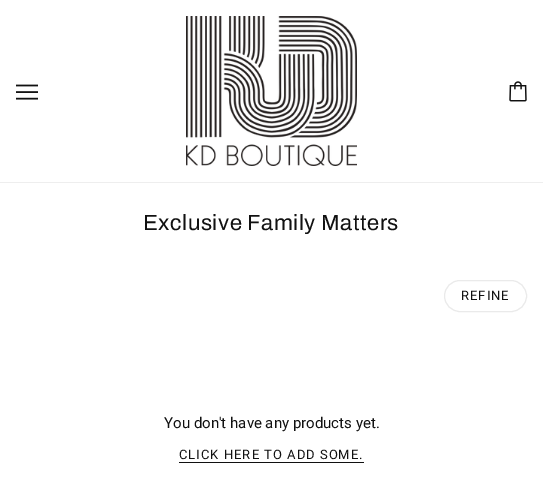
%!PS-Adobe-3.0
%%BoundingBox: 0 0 543 477
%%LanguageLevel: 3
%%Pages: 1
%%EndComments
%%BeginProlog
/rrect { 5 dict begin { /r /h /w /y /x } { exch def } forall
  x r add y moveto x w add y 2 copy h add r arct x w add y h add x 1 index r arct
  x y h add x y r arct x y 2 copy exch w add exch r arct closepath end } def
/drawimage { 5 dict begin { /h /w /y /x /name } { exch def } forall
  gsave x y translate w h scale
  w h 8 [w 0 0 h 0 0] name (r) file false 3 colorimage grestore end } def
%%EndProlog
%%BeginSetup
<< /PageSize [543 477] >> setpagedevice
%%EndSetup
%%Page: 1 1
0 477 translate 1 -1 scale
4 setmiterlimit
1 setgray
0 0 543 477 rectfill
0.933 setgray
0 182 543 1 rectfill
(images/1.raw) 16 84 22 16 drawimage
(images/2.raw) 186 16 171 150 drawimage
(images/3.raw) 509 81 18 21 drawimage
0.918 setgray
444.5 280.5 82 31 15.5 rrect stroke
0.067 setgray
179 462 185 1 rectfill
/Archivo-Regular [22 0 0 -22 0 0] selectfont
143 230 moveto 0.55 0 (Exclusive Family Matters) ashow
/Roboto-Regular [13 0 0 -13 0 0] selectfont
461 300 moveto 1 0 (REFINE) ashow
/Roboto-Regular [15 0 0 -15 0 0] selectfont
164 428 moveto (You don't have any products yet.) show
/Roboto-Regular [13 0 0 -13 0 0] selectfont
179 459 moveto 1 0 (CLICK HERE TO ADD SOME.) ashow
showpage
%%EOF
